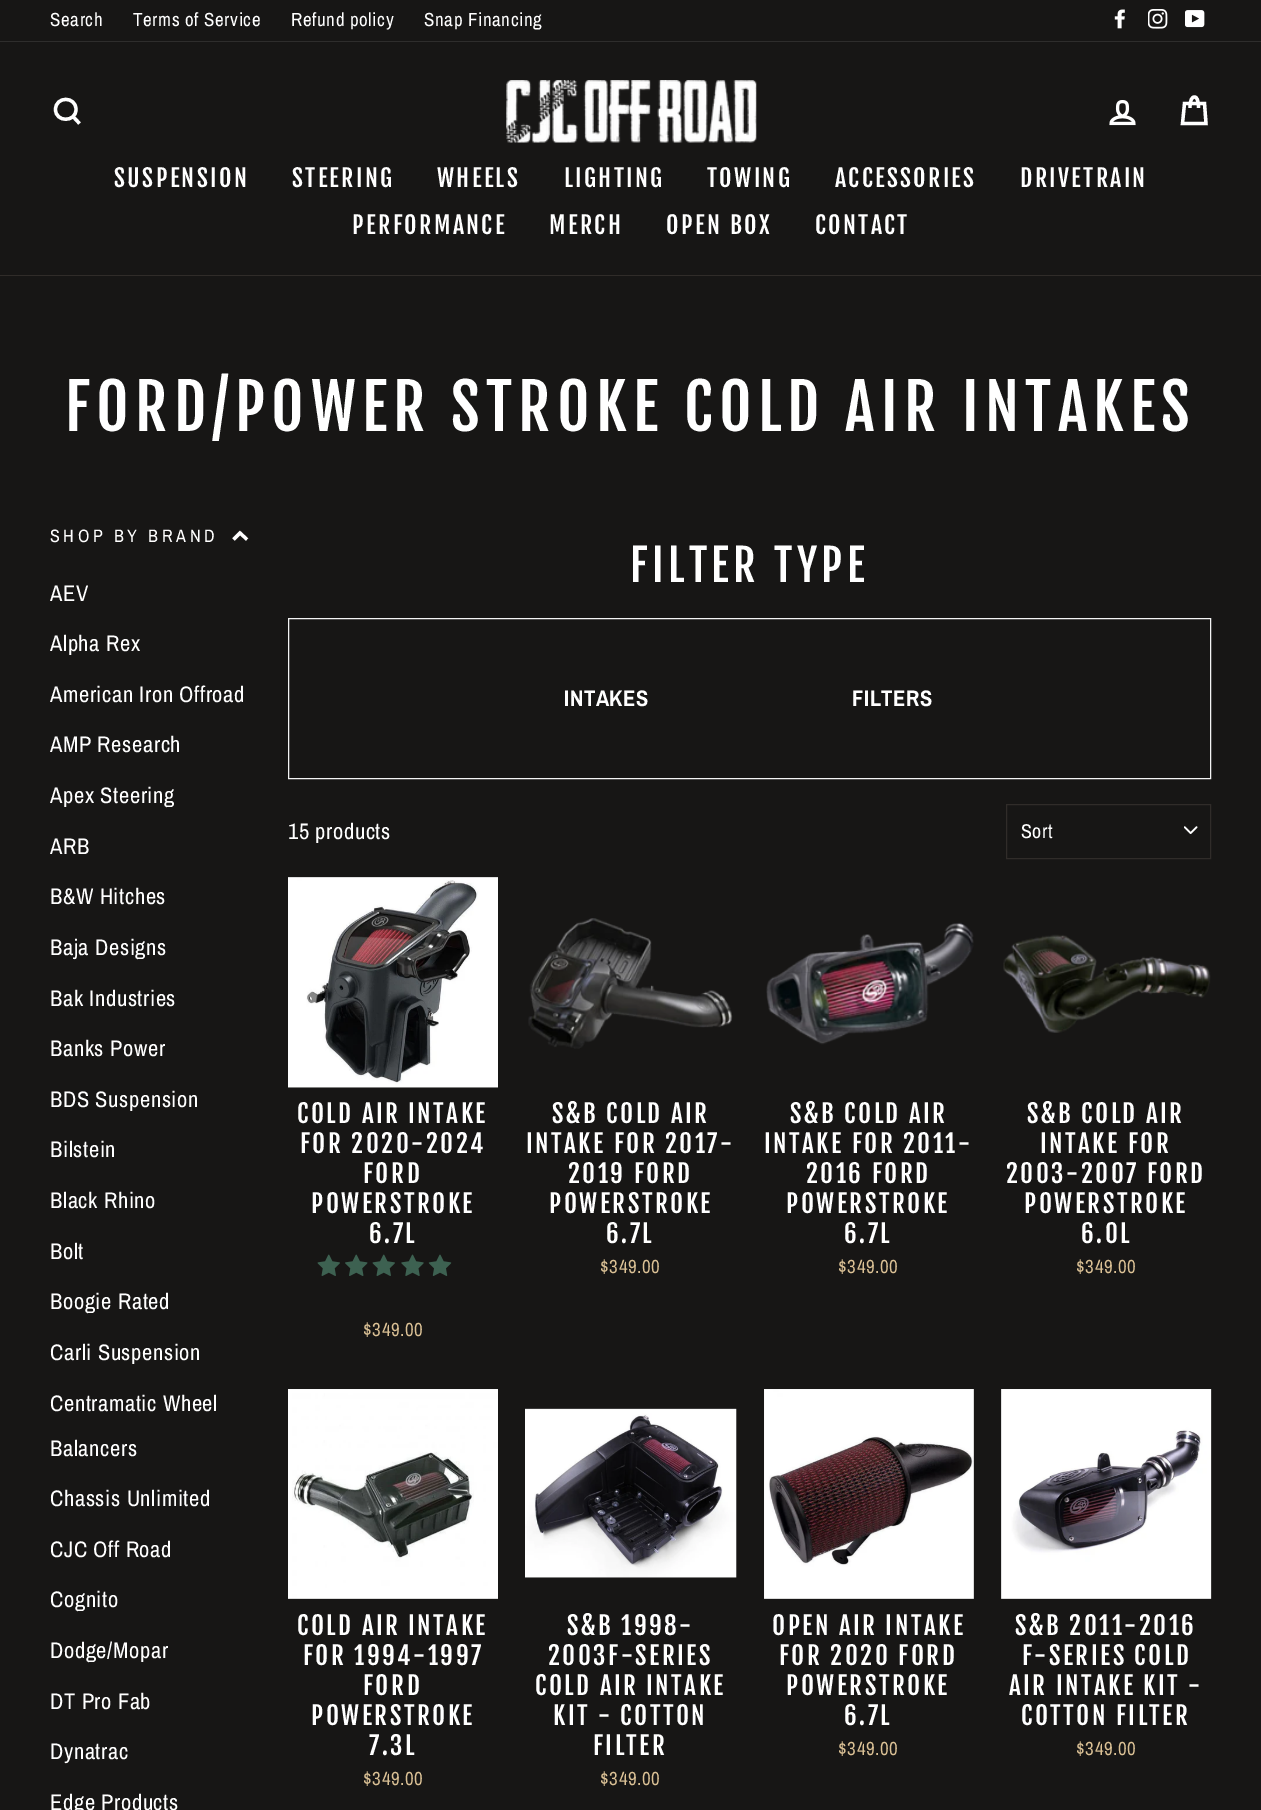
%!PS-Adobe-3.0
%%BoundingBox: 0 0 1261 1810
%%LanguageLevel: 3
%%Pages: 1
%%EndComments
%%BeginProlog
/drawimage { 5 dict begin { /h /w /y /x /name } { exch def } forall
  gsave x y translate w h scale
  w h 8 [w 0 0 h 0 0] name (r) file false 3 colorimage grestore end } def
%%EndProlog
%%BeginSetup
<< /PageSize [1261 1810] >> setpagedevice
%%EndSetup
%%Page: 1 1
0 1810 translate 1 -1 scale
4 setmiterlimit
0.09 0.086 0.082 setrgbcolor
0 0 1261 1810 rectfill
(images/1.raw) 1114 9 11 20 drawimage
(images/2.raw) 1148 9 20 20 drawimage
(images/3.raw) 1185 10 20 18 drawimage
0.18 0.176 0.173 setrgbcolor
0 41 1261 1 rectfill
0.188 0.173 0.161 setrgbcolor
0 275 1261 1 rectfill
1 setgray
3.3 setlinewidth
newpath 76 109.5 moveto 76 122.5 55.5 122.5 55.5 109.5 curveto 55.5 96 76 96 76 109.5 curveto closepath 79.5 123.5 moveto 73 116.5 lineto stroke
(images/4.raw) 506 80 251 63 drawimage
(images/5.raw) 1109 100 27 26 drawimage
newpath 1190 108 moveto 1190 99.5 1192 97 1194.5 97 curveto 1196.5 97 1198.5 99.5 1198.5 108 curveto 1184.5 103.5 moveto 1204.5 103.5 lineto 1206 123.5 lineto 1182.5 123.5 lineto closepath stroke
3.2 setlinewidth
newpath 233.5 539.5 moveto 240 533 lineto 247 539.5 lineto stroke
0.957 setgray
1 setlinewidth
288.5 618.5 922 160 rectstroke
(images/6.raw) 1184 826 14 8 drawimage
0.188 0.173 0.161 setrgbcolor
1006.5 804.5 204 54 rectstroke
(images/7.raw) 288 877 210 211 drawimage
(images/8.raw) 317 1254 23 22 drawimage
(images/9.raw) 345 1254 23 22 drawimage
(images/8.raw) 372 1254 23 22 drawimage
(images/10.raw) 401 1254 23 22 drawimage
(images/11.raw) 428 1254 24 22 drawimage
(images/12.raw) 528 918 205 131 drawimage
(images/13.raw) 766 922 208 123 drawimage
(images/14.raw) 1003 934 208 99 drawimage
(images/15.raw) 288 1389 210 210 drawimage
(images/16.raw) 525 1408 212 170 drawimage
(images/17.raw) 764 1389 210 210 drawimage
(images/18.raw) 1001 1389 211 210 drawimage
/ArchivoNarrow-Regular [19 0 0 -19 0 0] selectfont
1 setgray
50 26 moveto 0.6 0 (Search) ashow
133 26 moveto 0.6 0 (Terms of Service) ashow
291 26 moveto 0.6 0 (Refund policy) ashow
424 26 moveto 0.6 0 (Snap Financing) ashow
/FjallaOne-Regular [23.75 0 0 -23.75 0 0] selectfont
114 187 moveto 2.4 0 (SUSPENSION) ashow
292 187 moveto 2.4 0 (STEERING) ashow
437 187 moveto 2.4 0 (WHEELS) ashow
564 187 moveto 2.4 0 (LIGHTING) ashow
707 187 moveto 2.4 0 (TOWING) ashow
835 187 moveto 2.4 0 (ACCESSORIES) ashow
1020 187 moveto 2.4 0 (DRIVETRAIN) ashow
352 234 moveto 2.4 0 (PERFORMANCE) ashow
549 234 moveto 2.4 0 (MERCH) ashow
666 234 moveto 2.4 0 (OPEN BOX) ashow
815 234 moveto 2.4 0 (CONTACT) ashow
/FjallaOne-Regular [62.5 0 0 -62.5 0 0] selectfont
65 431 moveto 6.25 0 (FORD/POWER STROKE COLD AIR INTAKES) ashow
/ArchivoNarrow-Regular [18 0 0 -18 0 0] selectfont
50 542 moveto 3.6 0 (SHOP BY BRAND) ashow
/ArchivoNarrow-Regular [22.5 0 0 -22.5 0 0] selectfont
50 601 moveto 0.6 0 (AEV) ashow
50 651 moveto 0.6 0 (Alpha Rex) ashow
50 702 moveto 0.6 0 (American Iron Offroad) ashow
50 752 moveto 0.6 0 (AMP Research) ashow
50 803 moveto 0.6 0 (Apex Steering) ashow
50 854 moveto 0.6 0 (ARB) ashow
50 904 moveto 0.6 0 (B&W Hitches) ashow
50 955 moveto 0.6 0 (Baja Designs) ashow
50 1006 moveto 0.6 0 (Bak Industries) ashow
50 1056 moveto 0.6 0 (Banks Power) ashow
50 1107 moveto 0.6 0 (BDS Suspension) ashow
50 1157 moveto 0.6 0 (Bilstein) ashow
50 1208 moveto 0.6 0 (Black Rhino) ashow
50 1259 moveto 0.6 0 (Bolt) ashow
50 1309 moveto 0.6 0 (Boogie Rated) ashow
50 1360 moveto 0.6 0 (Carli Suspension) ashow
50 1411 moveto 0.6 0 (Centramatic Wheel) ashow
50 1456 moveto 0.6 0 (Balancers) ashow
50 1506 moveto 0.6 0 (Chassis Unlimited) ashow
50 1557 moveto 0.6 0 (CJC Off Road) ashow
50 1607 moveto 0.6 0 (Cognito) ashow
50 1658 moveto 0.6 0 (Dodge/Mopar) ashow
50 1709 moveto 0.6 0 (DT Pro Fab) ashow
50 1759 moveto 0.6 0 (Dynatrac) ashow
50 1810 moveto 0.6 0 (Edge Products) ashow
/FjallaOne-Regular [43.75 0 0 -43.75 0 0] selectfont
630 582 moveto 4.4 0 (FILTER TYPE) ashow
/ArchivoNarrow-Bold [22.5 0 0 -22.5 0 0] selectfont
564 706 moveto 0.6 0 (INTAKES) ashow
852 706 moveto 0.6 0 (FILTERS) ashow
/ArchivoNarrow-Regular [22.5 0 0 -22.5 0 0] selectfont
288 839 moveto 0.6 0 (15 products) ashow
/ArchivoNarrow-Regular [20 0 0 -20 0 0] selectfont
1021 838 moveto 0.5 0 (Sort) ashow
/FjallaOne-Regular [25 0 0 -25 0 0] selectfont
297 1123 moveto 2.5 0 (COLD AIR INTAKE) ashow
300 1153 moveto 2.5 0 (FOR 2020-2024) ashow
363 1183 moveto 2.5 0 (FORD) ashow
311 1213 moveto 2.5 0 (POWERSTROKE) ashow
369 1243 moveto 2.5 0 (6.7L) ashow
/ArchivoNarrow-Regular [19 0 0 -19 0 0] selectfont
0.859 0.757 0.584 setrgbcolor
363 1336 moveto 0.6 0 ($349.00) ashow
/FjallaOne-Regular [25 0 0 -25 0 0] selectfont
1 setgray
552 1123 moveto 2.5 0 (S&B COLD AIR) ashow
526 1153 moveto 2.5 0 (INTAKE FOR 2017-) ashow
568 1183 moveto 2.5 0 (2019 FORD) ashow
549 1213 moveto 2.5 0 (POWERSTROKE) ashow
606 1243 moveto 2.5 0 (6.7L) ashow
/ArchivoNarrow-Regular [19 0 0 -19 0 0] selectfont
0.859 0.757 0.584 setrgbcolor
600 1273 moveto 0.6 0 ($349.00) ashow
/FjallaOne-Regular [25 0 0 -25 0 0] selectfont
1 setgray
790 1123 moveto 2.5 0 (S&B COLD AIR) ashow
764 1153 moveto 2.5 0 (INTAKE FOR 2011-) ashow
806 1183 moveto 2.5 0 (2016 FORD) ashow
786 1213 moveto 2.5 0 (POWERSTROKE) ashow
844 1243 moveto 2.5 0 (6.7L) ashow
/ArchivoNarrow-Regular [19 0 0 -19 0 0] selectfont
0.859 0.757 0.584 setrgbcolor
838 1273 moveto 0.6 0 ($349.00) ashow
/FjallaOne-Regular [25 0 0 -25 0 0] selectfont
1 setgray
1027 1123 moveto 2.5 0 (S&B COLD AIR) ashow
1040 1153 moveto 2.5 0 (INTAKE FOR) ashow
1006 1183 moveto 2.5 0 (2003-2007 FORD) ashow
1024 1213 moveto 2.5 0 (POWERSTROKE) ashow
1081 1243 moveto 2.5 0 (6.0L) ashow
/ArchivoNarrow-Regular [19 0 0 -19 0 0] selectfont
0.859 0.757 0.584 setrgbcolor
1076 1273 moveto 0.6 0 ($349.00) ashow
/FjallaOne-Regular [25 0 0 -25 0 0] selectfont
1 setgray
297 1635 moveto 2.5 0 (COLD AIR INTAKE) ashow
303 1665 moveto 2.5 0 (FOR 1994-1997) ashow
363 1695 moveto 2.5 0 (FORD) ashow
311 1725 moveto 2.5 0 (POWERSTROKE) ashow
369 1755 moveto 2.5 0 (7.3L) ashow
/ArchivoNarrow-Regular [19 0 0 -19 0 0] selectfont
0.859 0.757 0.584 setrgbcolor
363 1785 moveto 0.6 0 ($349.00) ashow
/FjallaOne-Regular [25 0 0 -25 0 0] selectfont
1 setgray
567 1635 moveto 2.5 0 (S&B 1998-) ashow
548 1665 moveto 2.5 0 (2003F-SERIES) ashow
535 1695 moveto 2.5 0 (COLD AIR INTAKE) ashow
553 1725 moveto 2.5 0 (KIT - COTTON) ashow
593 1755 moveto 2.5 0 (FILTER) ashow
/ArchivoNarrow-Regular [19 0 0 -19 0 0] selectfont
0.859 0.757 0.584 setrgbcolor
600 1785 moveto 0.6 0 ($349.00) ashow
/FjallaOne-Regular [25 0 0 -25 0 0] selectfont
1 setgray
772 1635 moveto 2.5 0 (OPEN AIR INTAKE) ashow
779 1665 moveto 2.5 0 (FOR 2020 FORD) ashow
786 1695 moveto 2.5 0 (POWERSTROKE) ashow
844 1725 moveto 2.5 0 (6.7L) ashow
/ArchivoNarrow-Regular [19 0 0 -19 0 0] selectfont
0.859 0.757 0.584 setrgbcolor
838 1755 moveto 0.6 0 ($349.00) ashow
/FjallaOne-Regular [25 0 0 -25 0 0] selectfont
1 setgray
1015 1635 moveto 2.5 0 (S&B 2011-2016) ashow
1022 1665 moveto 2.5 0 (F-SERIES COLD) ashow
1009 1695 moveto 2.5 0 (AIR INTAKE KIT -) ashow
1021 1725 moveto 2.5 0 (COTTON FILTER) ashow
/ArchivoNarrow-Regular [19 0 0 -19 0 0] selectfont
0.859 0.757 0.584 setrgbcolor
1076 1755 moveto 0.6 0 ($349.00) ashow
showpage
%%EOF
